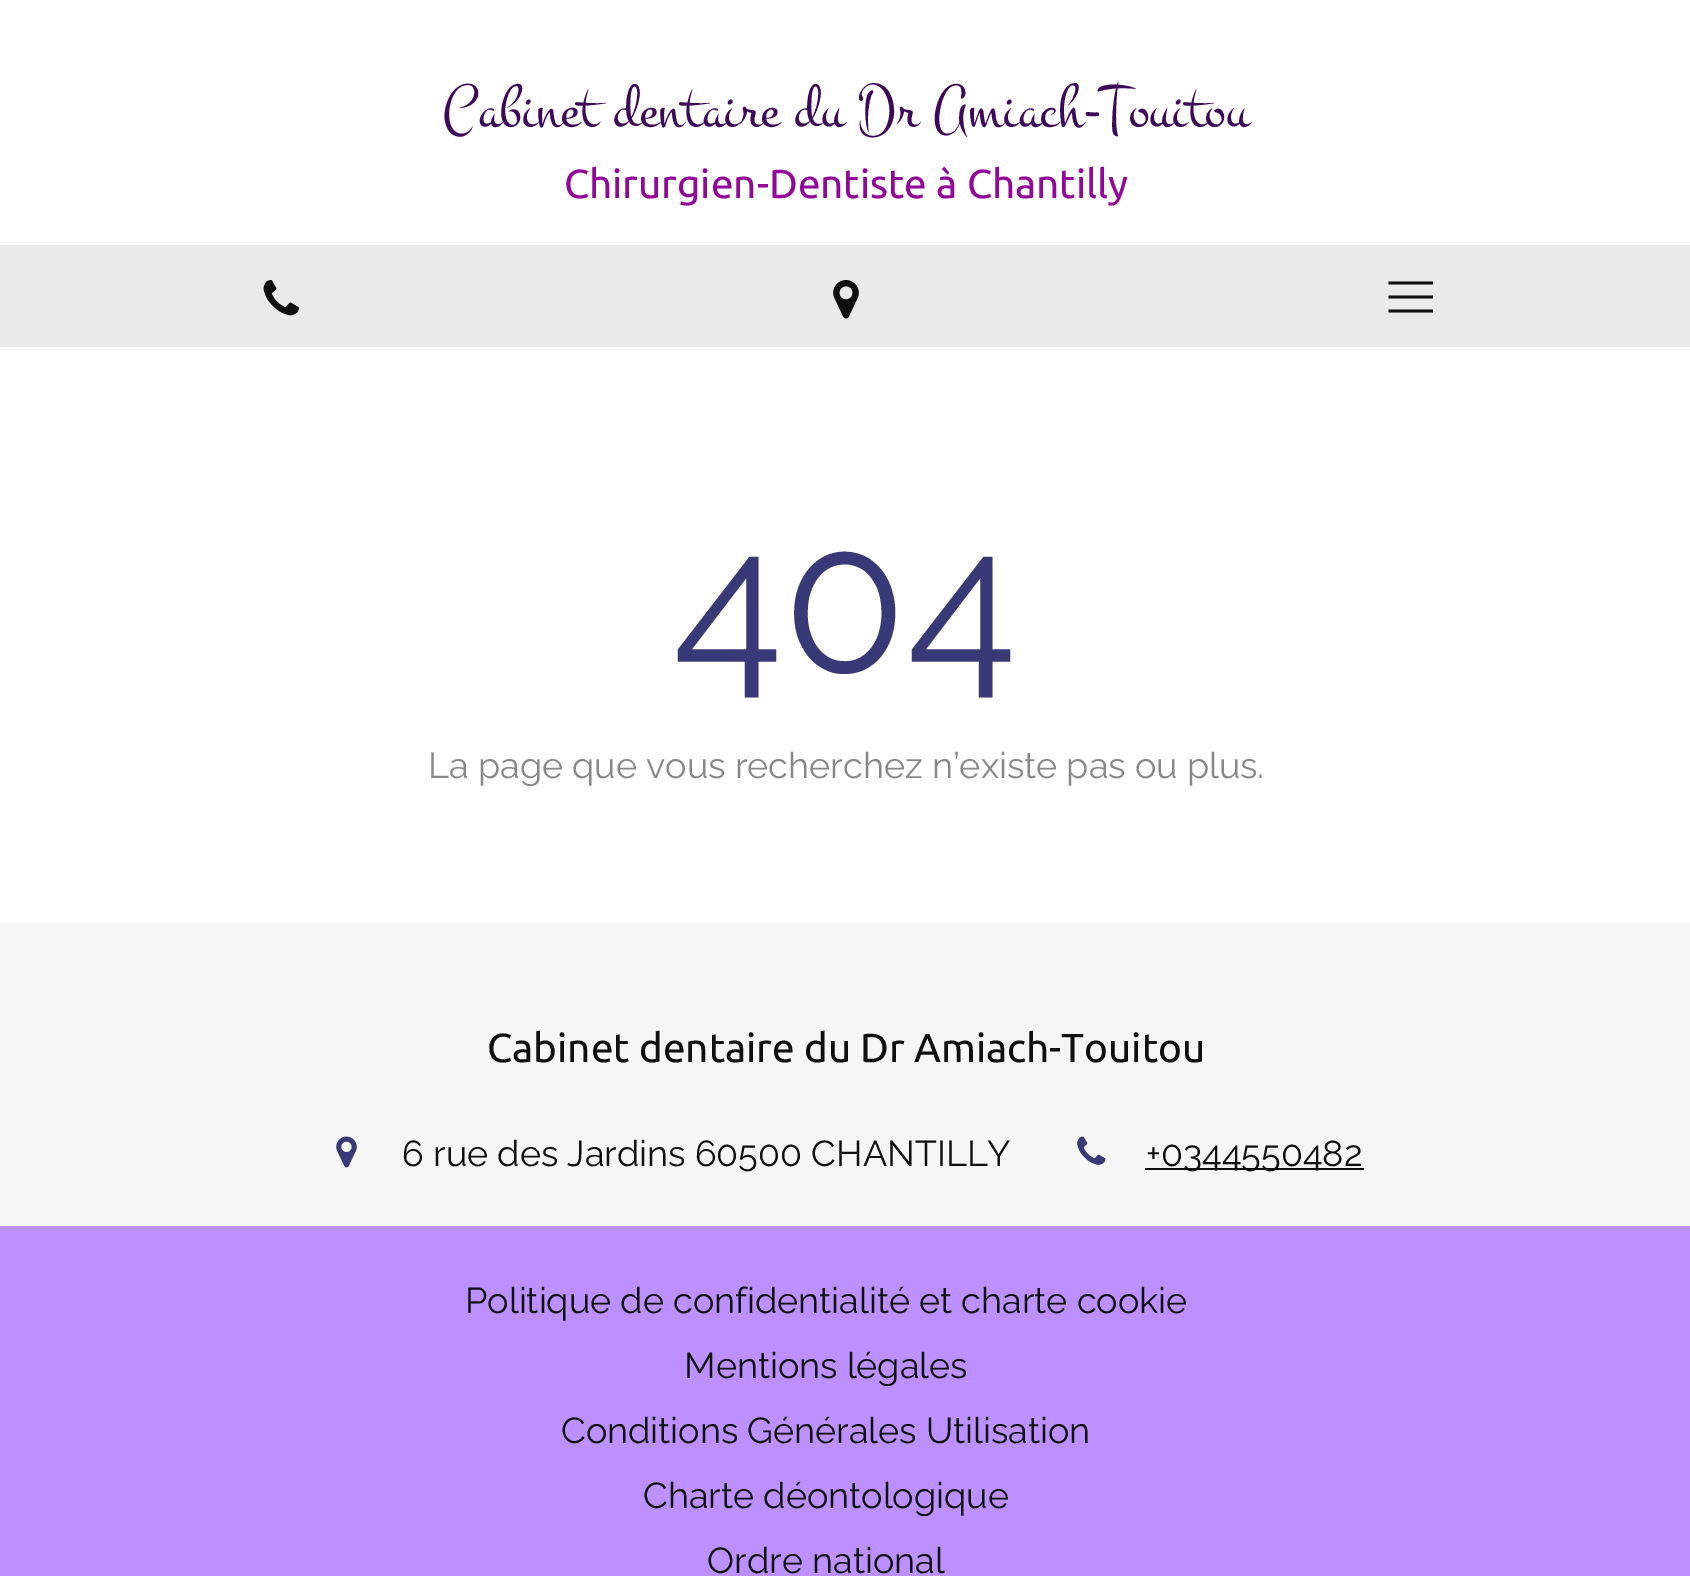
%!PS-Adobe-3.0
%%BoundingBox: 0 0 1690 1576
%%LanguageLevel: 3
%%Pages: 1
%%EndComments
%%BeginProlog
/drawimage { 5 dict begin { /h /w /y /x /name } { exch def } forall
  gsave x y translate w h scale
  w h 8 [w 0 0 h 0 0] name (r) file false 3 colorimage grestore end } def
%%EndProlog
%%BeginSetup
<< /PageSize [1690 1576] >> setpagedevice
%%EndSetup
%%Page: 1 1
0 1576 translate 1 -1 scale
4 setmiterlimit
1 setgray
0 0 1690 1576 rectfill
0.918 setgray
0 245 1690 102 rectfill
(images/1.raw) 263 280 36 36 drawimage
(images/2.raw) 833 280 26 39 drawimage
0.059 setgray
2.7 setlinewidth
newpath 1388.5 297 moveto 1433 297 lineto 1388.5 283 moveto 1433 283 lineto 1388.5 311 moveto 1433 311 lineto stroke
0.965 setgray
0 923 1690 303 rectfill
(images/3.raw) 336 1136 21 32 drawimage
(images/4.raw) 1077 1136 29 29 drawimage
0.059 setgray
1145 1168 219 2 rectfill
0.737 0.565 1 setrgbcolor
0 1226 1690 350 rectfill
/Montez-Regular [63 0 0 -63 0 0] selectfont
0.239 0.027 0.353 setrgbcolor
443 126 moveto (Cabinet dentaire du Dr Amiach-Touitou) show
/Ubuntu-Regular [40.5 0 0 -40.5 0 0] selectfont
0.576 0.024 0.604 setrgbcolor
564 198 moveto (Chirurgien-Dentiste à Chantilly) show
/Raleway-Regular [202 0 0 -202 0 0] selectfont
0.224 0.224 0.471 setrgbcolor
673 672 moveto (404) show
/Raleway-Regular [36 0 0 -36 0 0] selectfont
0.533 setgray
428 778 moveto (La page que vous recherchez n’existe pas ou plus.) show
/Ubuntu-Regular [40.5 0 0 -40.5 0 0] selectfont
0.059 setgray
487 1062 moveto (Cabinet dentaire du Dr Amiach-Touitou) show
/Raleway-Regular [36 0 0 -36 0 0] selectfont
402 1166 moveto (6 rue des Jardins 60500 CHANTILLY) show
1146 1166 moveto (+0344550482) show
465 1313 moveto (Politique de confidentialité et charte cookie) show
684 1378 moveto (Mentions légales) show
561 1443 moveto (Conditions Générales Utilisation) show
643 1508 moveto (Charte déontologique) show
707 1573 moveto (Ordre national) show
showpage
%%EOF
